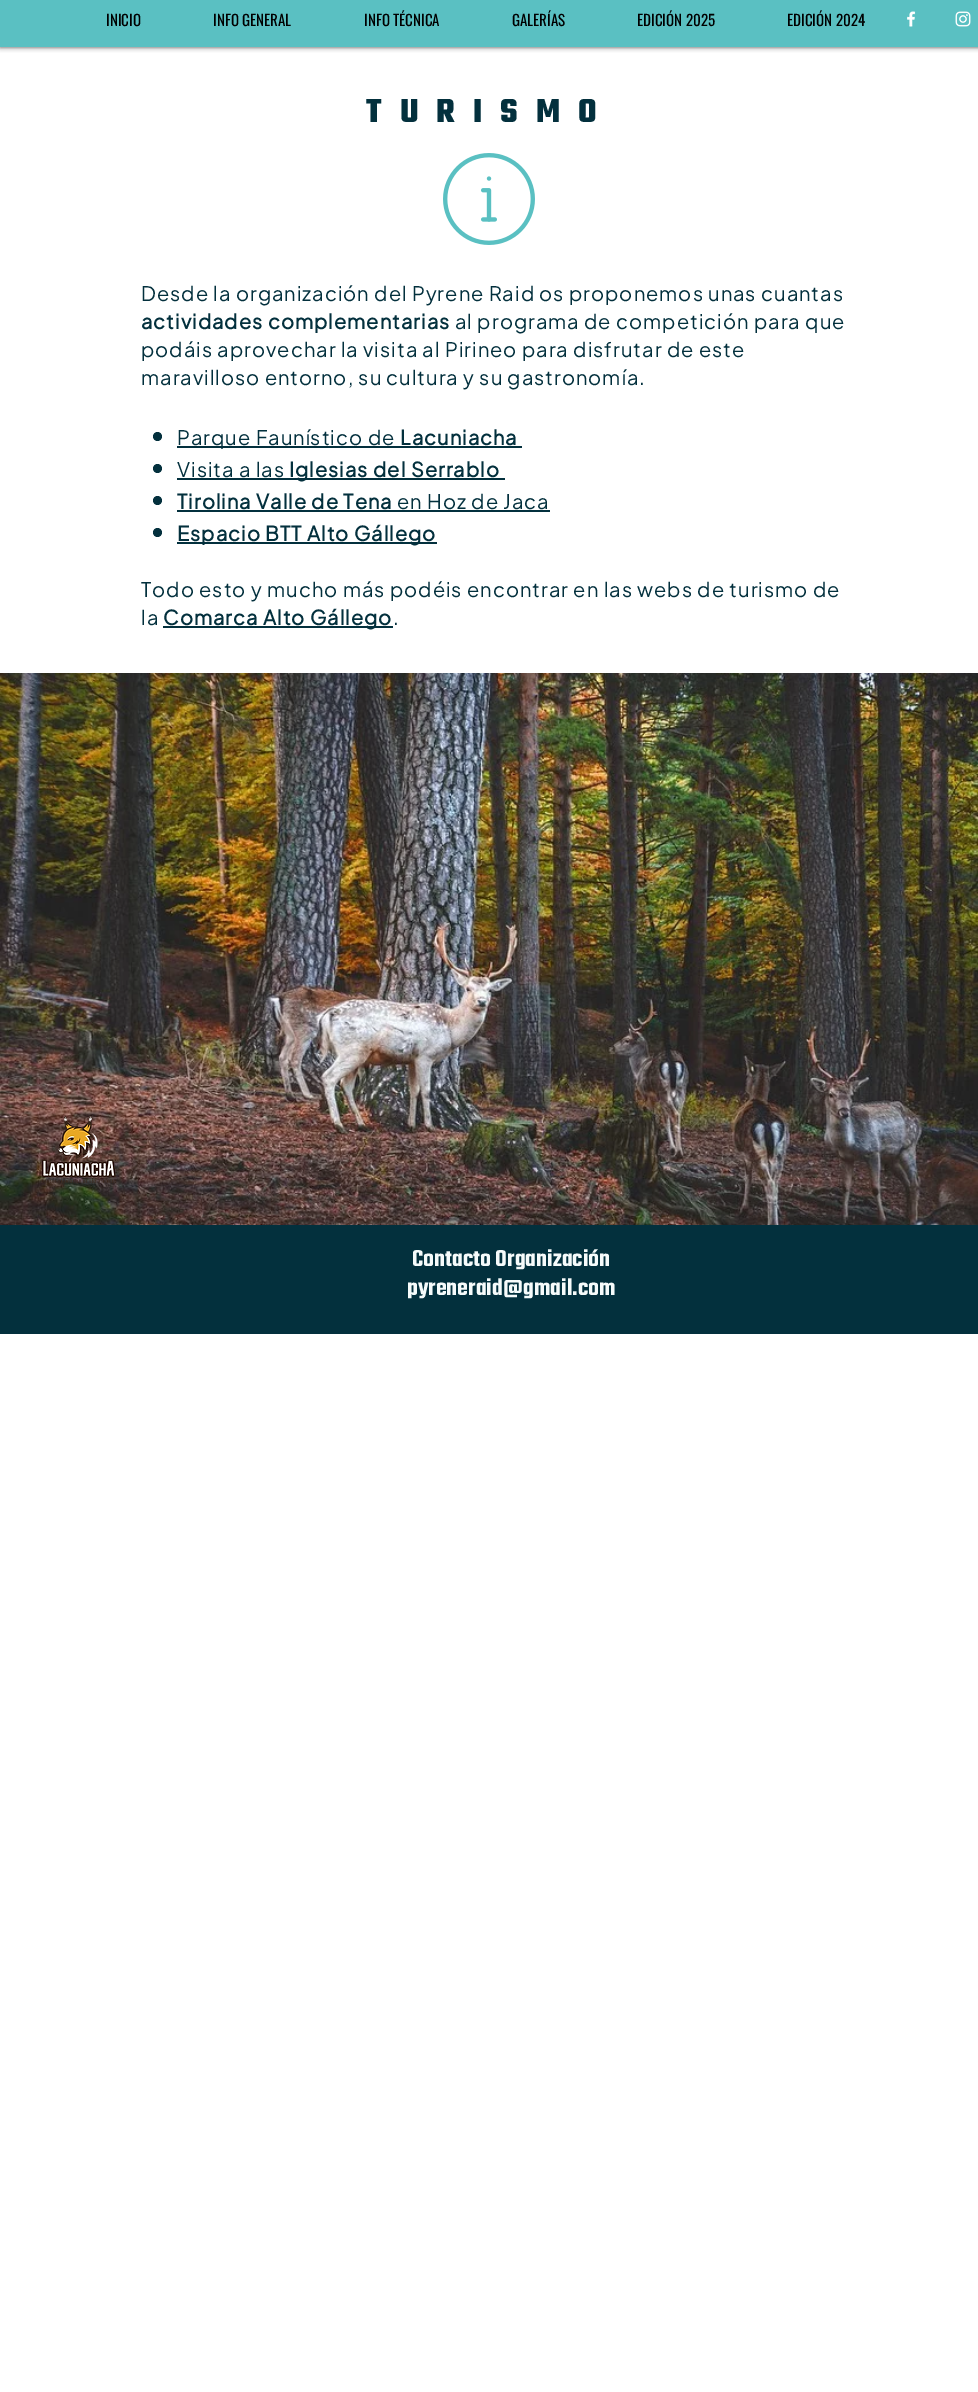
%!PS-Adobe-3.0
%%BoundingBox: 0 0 978 2392
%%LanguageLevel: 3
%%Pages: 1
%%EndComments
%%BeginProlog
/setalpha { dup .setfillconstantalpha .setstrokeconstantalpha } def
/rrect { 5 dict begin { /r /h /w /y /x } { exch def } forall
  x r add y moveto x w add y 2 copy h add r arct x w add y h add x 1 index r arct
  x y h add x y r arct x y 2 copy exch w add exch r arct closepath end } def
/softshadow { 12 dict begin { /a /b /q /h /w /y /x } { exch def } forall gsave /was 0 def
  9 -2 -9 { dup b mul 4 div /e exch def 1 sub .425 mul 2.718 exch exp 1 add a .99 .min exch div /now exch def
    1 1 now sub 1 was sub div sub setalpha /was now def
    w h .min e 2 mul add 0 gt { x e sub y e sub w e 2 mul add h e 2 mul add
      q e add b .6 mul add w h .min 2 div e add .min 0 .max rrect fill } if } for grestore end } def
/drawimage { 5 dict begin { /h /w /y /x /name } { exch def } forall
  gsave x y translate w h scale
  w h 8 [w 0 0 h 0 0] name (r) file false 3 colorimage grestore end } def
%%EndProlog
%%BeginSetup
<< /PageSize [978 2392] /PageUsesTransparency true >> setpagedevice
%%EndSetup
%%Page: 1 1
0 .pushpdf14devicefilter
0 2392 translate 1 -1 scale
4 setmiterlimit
1 setgray
0 0 978 2392 rectfill
0 setgray
0 0 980 47 0 2.5 0.7 softshadow
0.353 0.753 0.761 setrgbcolor
0 0 978 47 rectfill
(images/1.raw) 907 11 9 16 drawimage
(images/2.raw) 955 11 16 16 drawimage
(images/3.raw) 443 153 92 92 drawimage
0.012 0.188 0.239 setrgbcolor
newpath 157.5 436.5 4.5 0 360 arc closepath fill
177 446 345 2 rectfill
newpath 157.5 468.5 4.5 0 360 arc closepath fill
177 478 328 2 rectfill
newpath 157.5 500.5 4.5 0 360 arc closepath fill
177 510 373 2 rectfill
newpath 157.5 532.5 4.5 0 360 arc closepath fill
177 542 260 2 rectfill
163 626 230 2 rectfill
(images/4.raw) 0 673 978 552 drawimage
(images/5.raw) 41 1115 75 68 drawimage
0 1225 978 109 rectfill
/Oswald-Regular [15 0 0 -15 0 0] selectfont
0 setgray
106 26 moveto (INICIO) show
213 26 moveto (INFO GENERAL) show
364 26 moveto (INFO TÉCNICA) show
512 26 moveto (GALERÍAS) show
637 26 moveto (EDICIÓN 2025) show
787 26 moveto (EDICIÓN 2024) show
/Teko-Bold [36 0 0 -36 0 0] selectfont
0.012 0.188 0.239 setrgbcolor
366 122 moveto 18 0 (TURISMO) ashow
/PlusJakartaSans-Regular [20 0 0 -20 0 0] selectfont
141 301 moveto 1 0 (Desde la organización del Pyrene Raid os proponemos unas cuantas) ashow
/PlusJakartaSans-Bold [20 0 0 -20 0 0] selectfont
141 329 moveto 1 0 (actividades complementarias) ashow
/PlusJakartaSans-Regular [20 0 0 -20 0 0] selectfont
455 329 moveto 1 0 (al programa de competición para que) ashow
141 357 moveto 1 0 (podáis aprovechar la visita al Pirineo para disfrutar de este) ashow
141 385 moveto 1 0 (maravilloso entorno, su cultura y su gastronomía.) ashow
177 445 moveto 1 0 (Parque Faunístico de) ashow
/PlusJakartaSans-Bold [20 0 0 -20 0 0] selectfont
400 445 moveto 1 0 (Lacuniacha) ashow
/PlusJakartaSans-Regular [20 0 0 -20 0 0] selectfont
177 477 moveto 1 0 (Visita a las) ashow
/PlusJakartaSans-Bold [20 0 0 -20 0 0] selectfont
289 477 moveto 1 0 (Iglesias del Serrablo) ashow
177 509 moveto 1 0 (Tirolina Valle de Tena) ashow
/PlusJakartaSans-Regular [20 0 0 -20 0 0] selectfont
397 509 moveto 1 0 (en Hoz de Jaca) ashow
/PlusJakartaSans-Bold [20 0 0 -20 0 0] selectfont
177 541 moveto 1 0 (Espacio BTT Alto Gállego) ashow
/PlusJakartaSans-Regular [20 0 0 -20 0 0] selectfont
141 597 moveto 1 0 (Todo esto y mucho más podéis encontrar en las webs de turismo de) ashow
141 625 moveto 1 0 (la) ashow
/PlusJakartaSans-Bold [20 0 0 -20 0 0] selectfont
163 625 moveto 1 0 (Comarca Alto Gállego) ashow
/PlusJakartaSans-Regular [20 0 0 -20 0 0] selectfont
393 625 moveto 1 0 (.) ashow
/Teko-SemiBold [25 0 0 -25 0 0] selectfont
0.965 0.984 0.984 setrgbcolor
412 1266 moveto (Contacto Organización) show
407 1295 moveto (pyreneraid@gmail.com) show
.poppdf14devicefilter showpage
%%EOF
